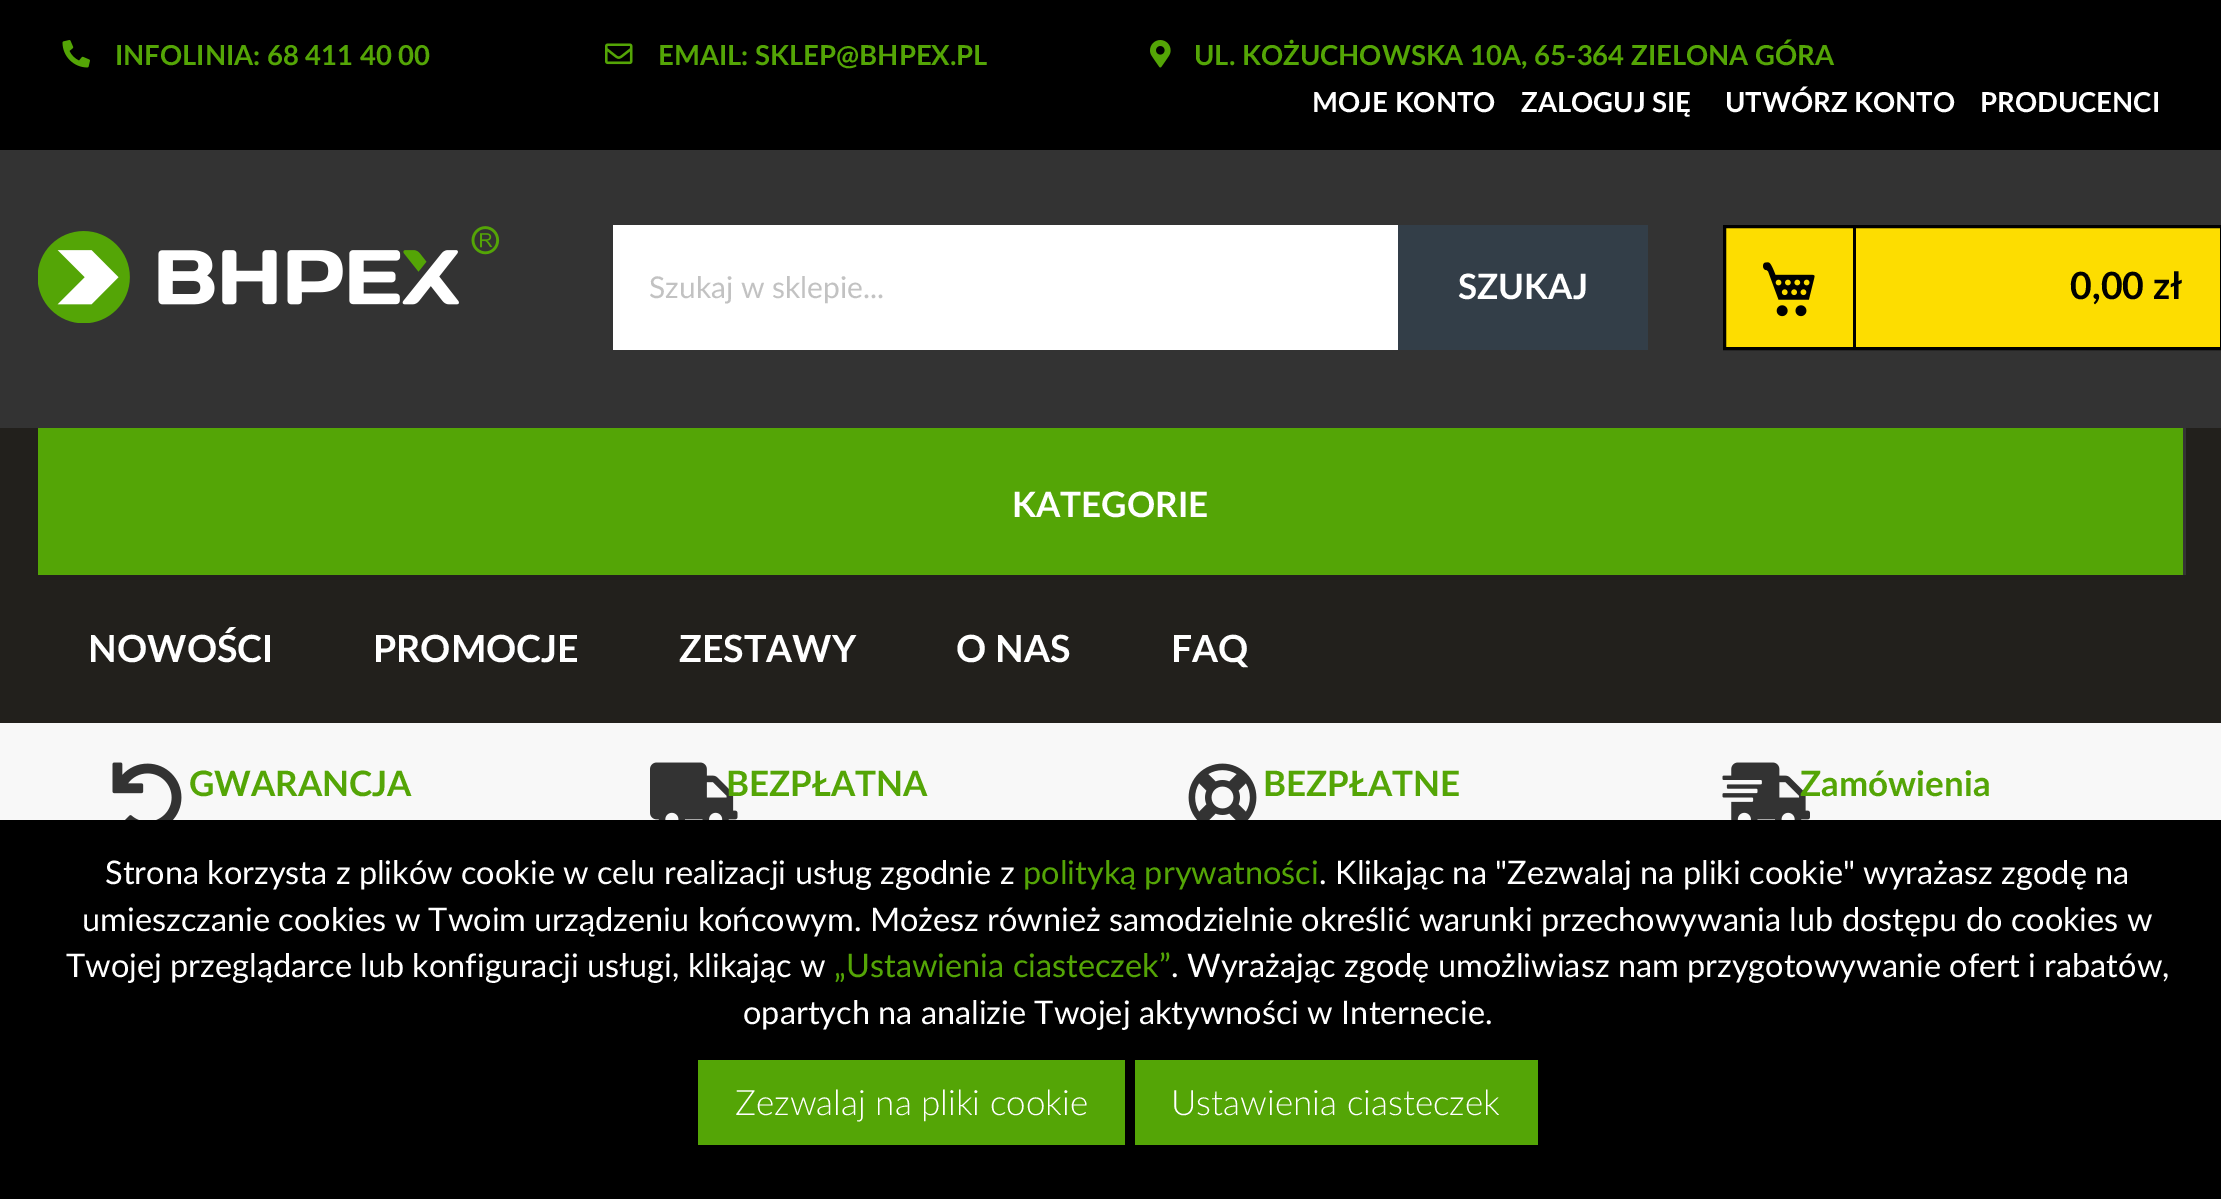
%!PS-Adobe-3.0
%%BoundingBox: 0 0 2221 1199
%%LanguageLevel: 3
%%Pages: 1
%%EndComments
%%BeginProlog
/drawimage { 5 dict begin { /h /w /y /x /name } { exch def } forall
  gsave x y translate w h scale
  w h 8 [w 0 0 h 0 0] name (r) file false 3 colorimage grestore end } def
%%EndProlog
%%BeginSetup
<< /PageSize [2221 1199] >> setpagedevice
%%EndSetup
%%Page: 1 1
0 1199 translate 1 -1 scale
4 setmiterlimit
0.2 setgray
0 0 2221 1199 rectfill
0 setgray
0 0 2221 150 rectfill
(images/1.raw) 62 40 28 28 drawimage
(images/2.raw) 605 43 28 22 drawimage
(images/3.raw) 1150 40 21 28 drawimage
(images/4.raw) 38 226 462 97 drawimage
1 setgray
613 225 785 125 rectfill
0.2 0.243 0.282 setrgbcolor
1398 225 250 125 rectfill
0.992 0.867 0 setrgbcolor
newpath 1724.5 226.5 moveto 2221.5 226.5 lineto 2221.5 348.5 lineto 1724.5 348.5 lineto closepath gsave fill grestore
0 setgray
3 setlinewidth
stroke
1853 228 3 122 rectfill
(images/5.raw) 1763 262 52 55 drawimage
0.133 0.125 0.11 setrgbcolor
0 428 2221 295 rectfill
0.329 0.647 0.024 setrgbcolor
38 428 2145 147 rectfill
0.204 setgray
2183 428 3 147 rectfill
0.973 setgray
0 723 2221 97 rectfill
(images/6.raw) 112 762 70 58 drawimage
(images/7.raw) 650 762 88 58 drawimage
(images/8.raw) 1188 763 69 57 drawimage
(images/9.raw) 1722 762 88 58 drawimage
0 setgray
0 820 2221 379 rectfill
0.329 0.647 0.024 setrgbcolor
698 1060 427 85 rectfill
1135 1060 403 85 rectfill
/Lato-Bold [27.5 0 0 -27.5 0 0] selectfont
115 65 moveto (INFOLINIA: 68 411 40 00) show
658 65 moveto (EMAIL: SKLEP@BHPEX.PL) show
1194 65 moveto (UL. KOŻUCHOWSKA 10A, 65-364 ZIELONA GÓRA) show
1 setgray
1312 112 moveto (MOJE KONTO) show
1521 112 moveto (ZALOGUJ SIĘ) show
1725 112 moveto (UTWÓRZ KONTO) show
1980 112 moveto (PRODUCENCI) show
/Lato-Regular [30 0 0 -30 0 0] selectfont
0.761 setgray
649 298 moveto (Szukaj w sklepie...) show
/Lato-Bold [35 0 0 -35 0 0] selectfont
1 setgray
1458 299 moveto (SZUKAJ) show
/Lato-Bold [37.5 0 0 -37.5 0 0] selectfont
0 setgray
2070 299 moveto (0,00 zł) show
/Lato-Bold [35 0 0 -35 0 0] selectfont
1 setgray
1012 517 moveto (KATEGORIE) show
/Lato-Bold [37.5 0 0 -37.5 0 0] selectfont
88 662 moveto (NOWOŚCI) show
373 662 moveto (PROMOCJE) show
679 662 moveto (ZESTAWY) show
956 662 moveto (O NAS) show
1171 662 moveto (FAQ) show
/Lato-Bold [35 0 0 -35 0 0] selectfont
0.329 0.647 0.024 setrgbcolor
189 796 moveto (GWARANCJA) show
726 796 moveto (BEZPŁATNA) show
1263 796 moveto (BEZPŁATNE) show
1800 796 moveto (Zamówienia) show
/Lato-Regular [32.5 0 0 -32.5 0 0] selectfont
1 setgray
105 884 moveto (Strona korzysta z plików cookie w celu realizacji usług zgodnie z) show
0.329 0.647 0.024 setrgbcolor
1023 884 moveto (polityką prywatności) show
1 setgray
1319 884 moveto (. Klikając na "Zezwalaj na pliki cookie" wyrażasz zgodę na) show
82 931 moveto (umieszczanie cookies w Twoim urządzeniu końcowym. Możesz również samodzielnie określić warunki przechowywania lub dostępu do cookies w) show
66 977 moveto (Twojej przeglądarce lub konfiguracji usługi, klikając w) show
0.329 0.647 0.024 setrgbcolor
834 977 moveto („Ustawienia ciasteczek”) show
1 setgray
1171 977 moveto (. Wyrażając zgodę umożliwiasz nam przygotowywanie ofert i rabatów,) show
743 1024 moveto (opartych na analizie Twojej aktywności w Internecie.) show
/Lato-Light [35 0 0 -35 0 0] selectfont
735 1115 moveto (Zezwalaj na pliki cookie) show
1171 1115 moveto (Ustawienia ciasteczek) show
showpage
%%EOF
